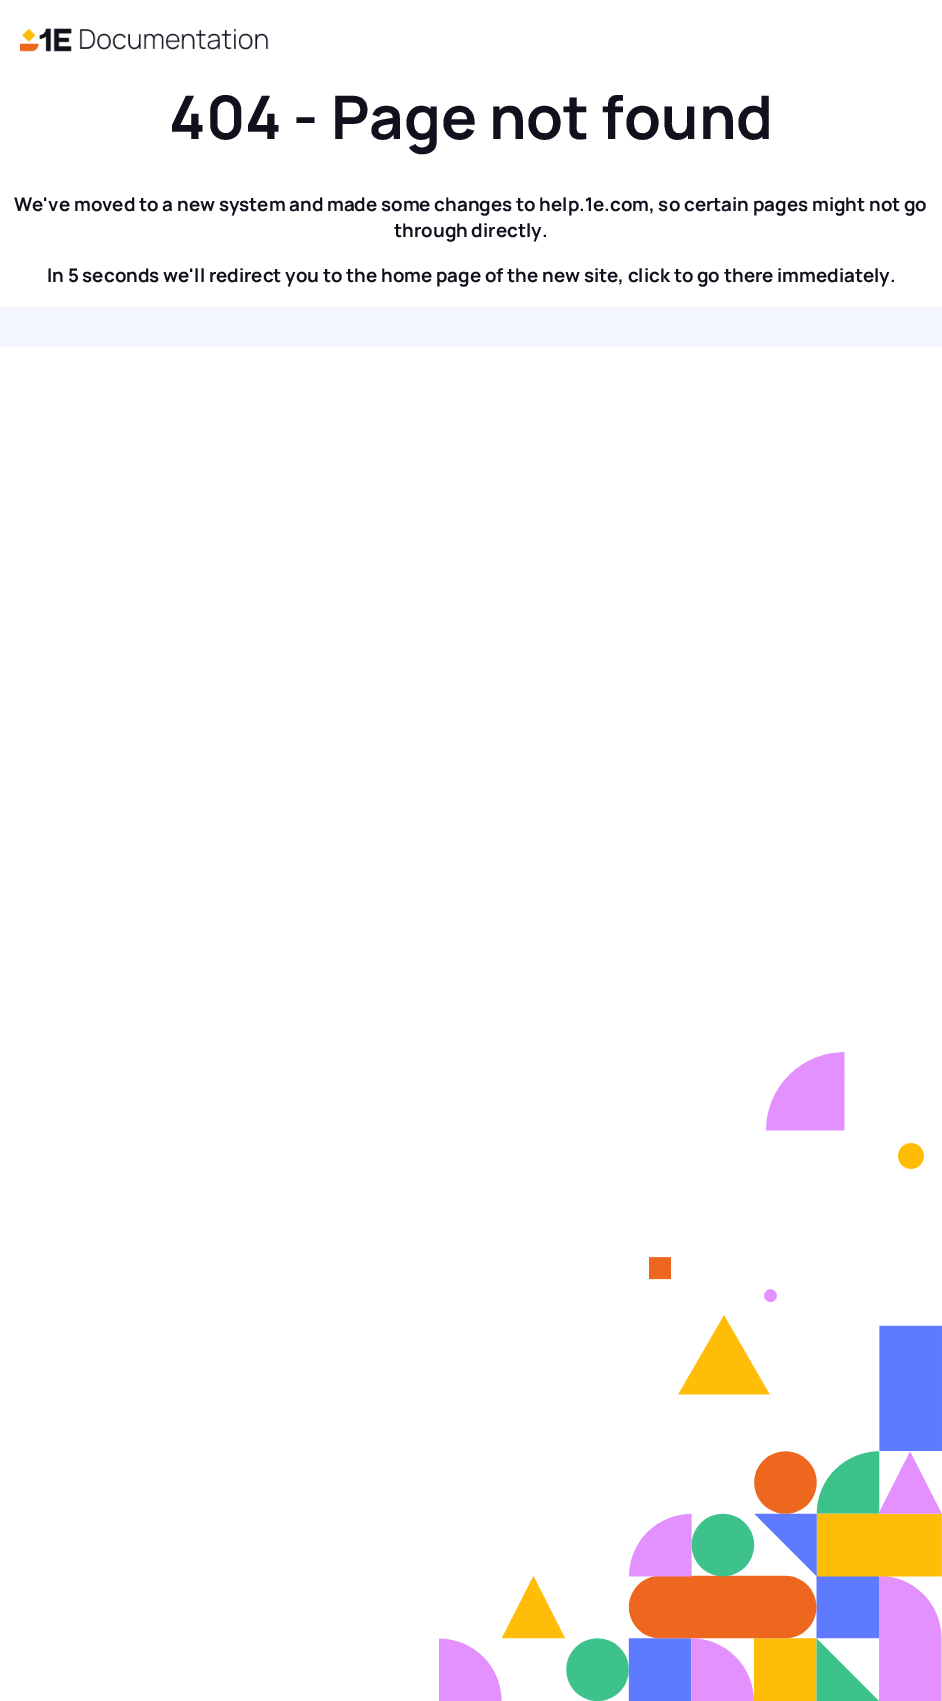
%!PS-Adobe-3.0
%%BoundingBox: 0 0 942 1701
%%LanguageLevel: 3
%%Pages: 1
%%EndComments
%%BeginProlog
/drawimage { 5 dict begin { /h /w /y /x /name } { exch def } forall
  gsave x y translate w h scale
  w h 8 [w 0 0 h 0 0] name (r) file false 3 colorimage grestore end } def
%%EndProlog
%%BeginSetup
<< /PageSize [942 1701] >> setpagedevice
%%EndSetup
%%Page: 1 1
0 1701 translate 1 -1 scale
4 setmiterlimit
1 setgray
0 0 942 1701 rectfill
(images/1.raw) 439 1052 503 649 drawimage
(images/2.raw) 20 28 249 24 drawimage
0.957 0.973 0.996 setrgbcolor
0 307 942 40 rectfill
/Manrope-Bold [60 0 0 -60 0 0] selectfont
0.063 0.067 0.114 setrgbcolor
169 139 moveto (404 - Page not found) show
/Manrope-Bold [18.7 0 0 -18.7 0 0] selectfont
14 211 moveto (We've moved to a new system and made some changes to help.1e.com, so certain pages might not go) show
394 237 moveto (through directly.) show
47 282 moveto (In 5 seconds we'll redirect you to the home page of the new site, click to go there immediately.) show
showpage
%%EOF
